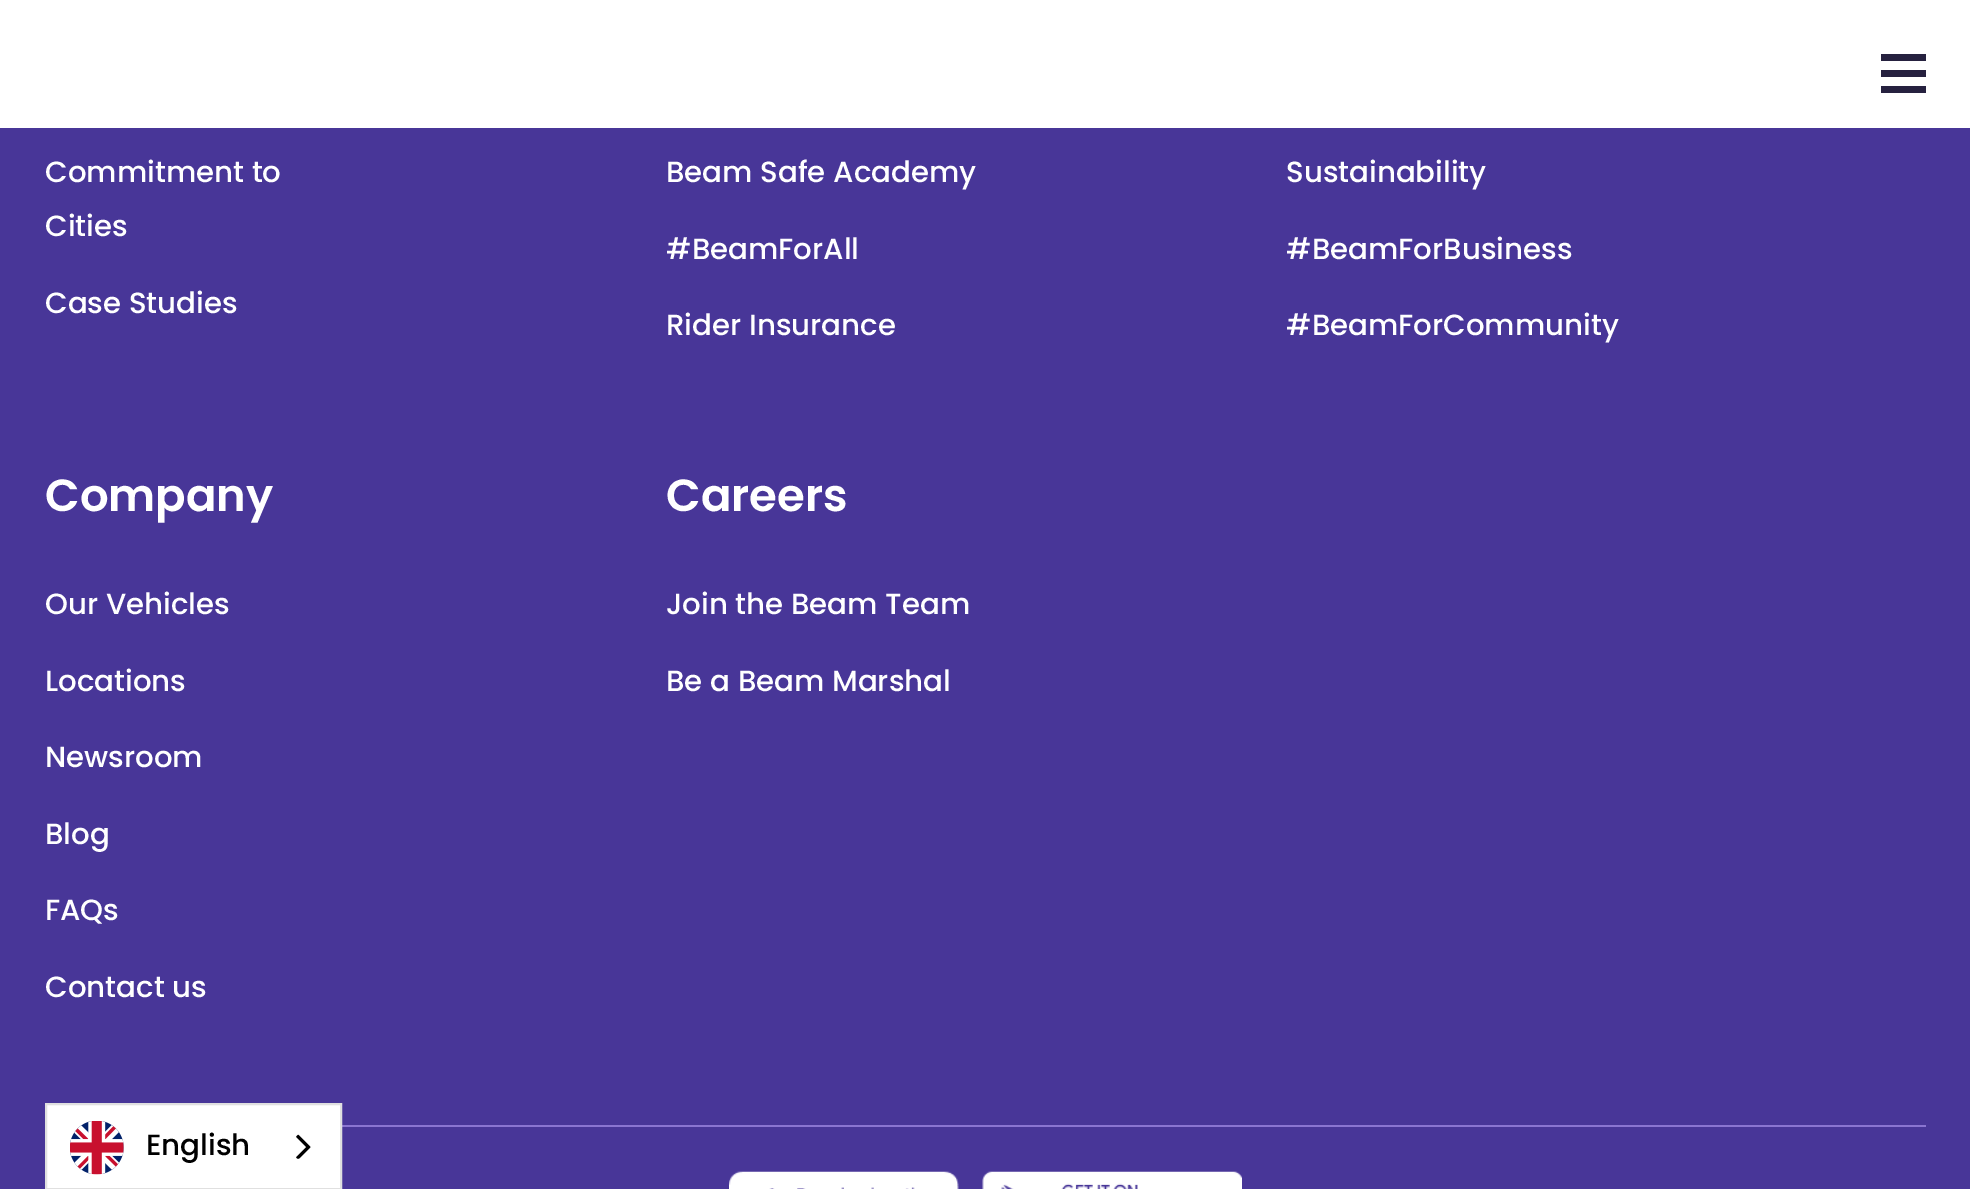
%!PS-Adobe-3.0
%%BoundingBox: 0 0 1970 1189
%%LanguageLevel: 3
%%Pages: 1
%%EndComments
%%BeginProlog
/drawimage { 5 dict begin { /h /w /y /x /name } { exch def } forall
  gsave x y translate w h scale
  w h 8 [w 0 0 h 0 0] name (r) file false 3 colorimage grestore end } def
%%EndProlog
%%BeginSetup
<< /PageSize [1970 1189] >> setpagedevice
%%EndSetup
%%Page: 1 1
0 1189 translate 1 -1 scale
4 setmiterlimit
0.282 0.212 0.596 setrgbcolor
0 0 1970 1189 rectfill
1 setgray
0 0 1970 128 rectfill
0.149 0.129 0.247 setrgbcolor
1881 54 45 7 rectfill
1881 70 45 7 rectfill
1881 86 45 7 rectfill
0.541 0.459 0.82 setrgbcolor
342 1125 1584 2 rectfill
(images/1.raw) 729 1171 230 18 drawimage
(images/2.raw) 982 1171 260 18 drawimage
1 setgray
newpath 46 1104 moveto 341 1104 lineto 341 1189 lineto 46 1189 lineto closepath gsave fill grestore
0.878 setgray
2 setlinewidth
stroke
(images/3.raw) 70 1121 54 54 drawimage
(images/4.raw) 296 1134 15 25 drawimage
/Poppins-Medium [29.25 0 0 -29.25 0 0] selectfont
1 setgray
45 182 moveto (Commitment to) show
45 236 moveto (Cities) show
45 313 moveto (Case Studies) show
666 182 moveto (Beam Safe Academy) show
666 259 moveto (#BeamForAll) show
666 335 moveto (Rider Insurance) show
1286 182 moveto (Sustainability) show
1286 259 moveto (#BeamForBusiness) show
1286 335 moveto (#BeamForCommunity) show
/Poppins-SemiBold [45 0 0 -45 0 0] selectfont
45 511 moveto (Company) show
/Poppins-Medium [29.25 0 0 -29.25 0 0] selectfont
45 614 moveto (Our Vehicles) show
45 691 moveto (Locations) show
45 767 moveto (Newsroom) show
45 844 moveto (Blog) show
45 920 moveto (FAQs) show
45 997 moveto (Contact us) show
/Poppins-SemiBold [45 0 0 -45 0 0] selectfont
666 511 moveto (Careers) show
/Poppins-Medium [29.25 0 0 -29.25 0 0] selectfont
666 614 moveto (Join the Beam Team) show
666 691 moveto (Be a Beam Marshal) show
0 setgray
146 1155 moveto (English) show
showpage
%%EOF
